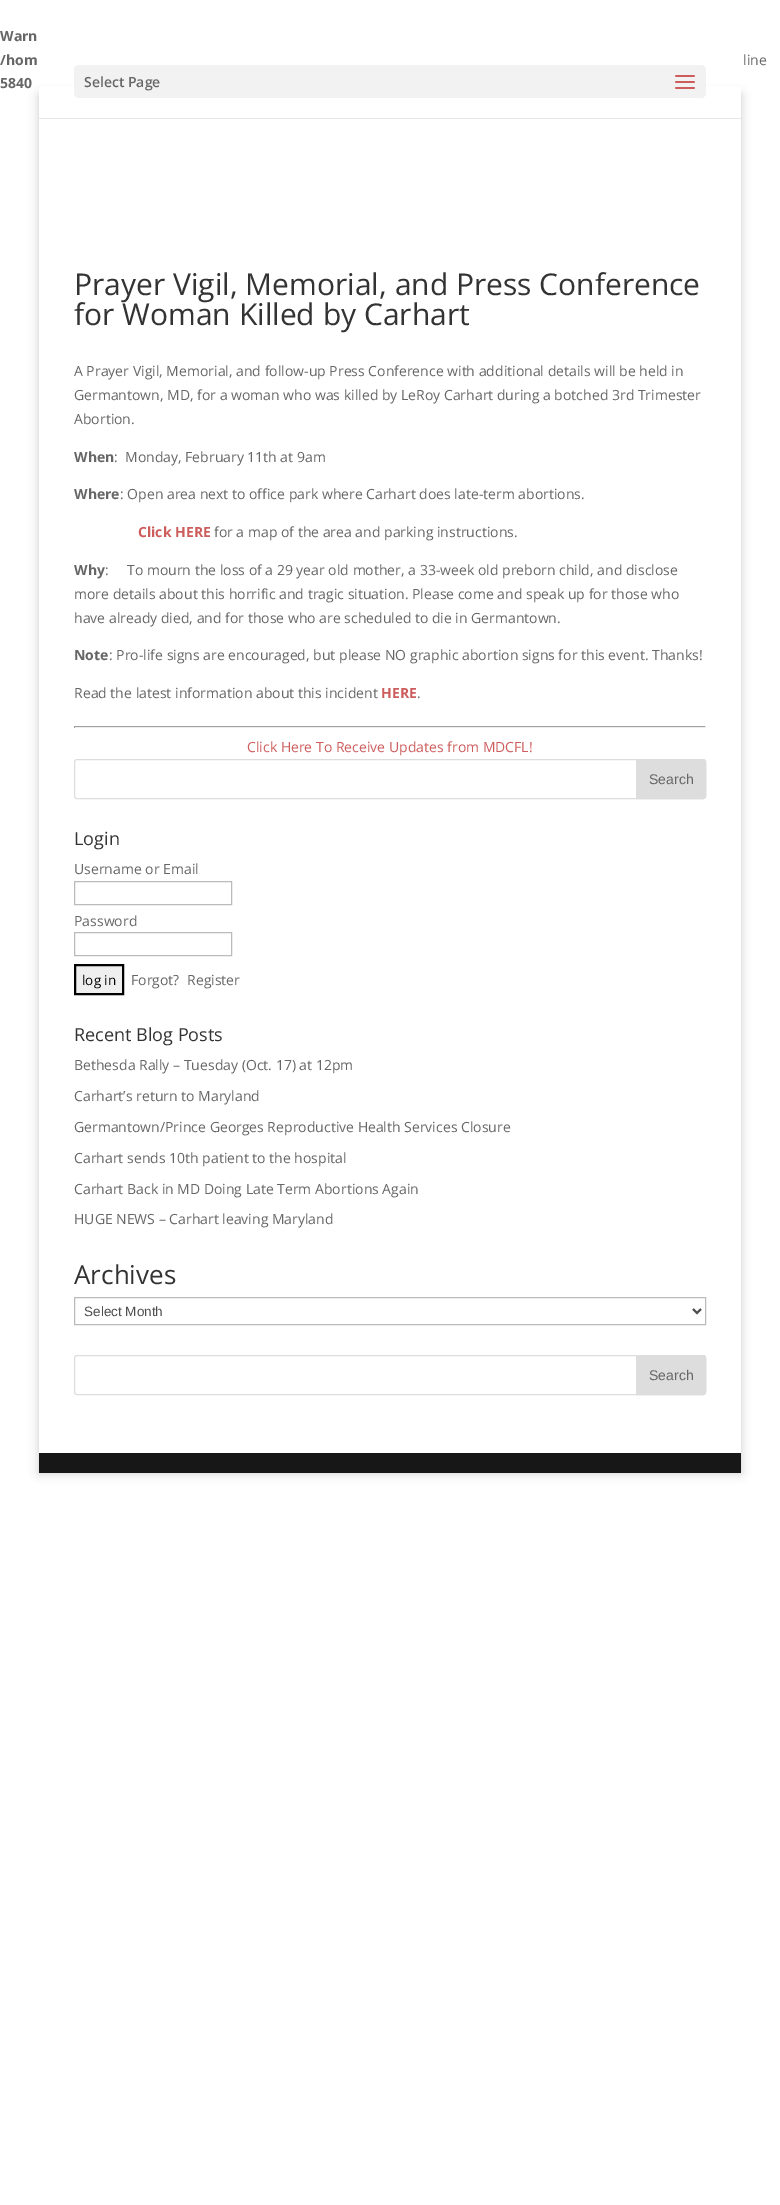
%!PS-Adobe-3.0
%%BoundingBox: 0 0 780 2205
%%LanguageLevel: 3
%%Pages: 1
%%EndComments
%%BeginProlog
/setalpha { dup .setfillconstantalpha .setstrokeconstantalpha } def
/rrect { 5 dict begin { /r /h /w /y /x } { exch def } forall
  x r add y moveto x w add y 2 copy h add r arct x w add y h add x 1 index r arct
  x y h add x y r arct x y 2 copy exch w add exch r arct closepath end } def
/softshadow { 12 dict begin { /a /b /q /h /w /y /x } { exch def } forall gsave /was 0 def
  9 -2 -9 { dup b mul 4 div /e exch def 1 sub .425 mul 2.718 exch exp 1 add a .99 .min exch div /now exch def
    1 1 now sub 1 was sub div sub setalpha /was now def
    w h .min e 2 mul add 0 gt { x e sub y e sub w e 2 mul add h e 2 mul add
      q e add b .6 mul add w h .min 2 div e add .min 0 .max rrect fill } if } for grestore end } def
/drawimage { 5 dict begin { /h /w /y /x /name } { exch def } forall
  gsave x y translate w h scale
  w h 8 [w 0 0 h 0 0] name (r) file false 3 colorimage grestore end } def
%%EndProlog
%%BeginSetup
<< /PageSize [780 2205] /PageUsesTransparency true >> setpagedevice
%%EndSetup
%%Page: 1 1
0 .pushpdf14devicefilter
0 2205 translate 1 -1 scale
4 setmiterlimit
1 setgray
0 0 780 2205 rectfill
gsave
newpath 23 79 moveto 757 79 lineto 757 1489 lineto 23 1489 lineto closepath 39 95 moveto 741 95 lineto 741 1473 lineto 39 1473 lineto closepath eoclip newpath
0 setgray
39 95 702 1378 0 5 0.2 softshadow
grestore
0.902 setgray
39 118 702 1 rectfill
1 setgray
39 87 702 8 rectfill
0.949 setgray
74 65 632 33 5 rrect fill
(images/1.raw) 675 75 20 14 drawimage
0.624 setgray
74 726 632 1 rectfill
0.933 setgray
705 726 1 2 rectfill
74 727 632 1 rectfill
0.624 setgray
74 726 1 2 rectfill
0.867 setgray
74.5 759.5 631 39 2.5 rrect stroke
newpath 636.5 759.5 moveto 703 759.5 lineto 704.5 759.5 705.5 760.5 705.5 762 curveto 705.5 796 lineto 705.5 797.5 704.5 798.5 703 798.5 curveto 636.5 798.5 lineto closepath gsave fill grestore
stroke
0.733 setgray
74.5 881.5 157 23 rectstroke
74.5 932.5 157 23 rectstroke
0.937 setgray
newpath 75 965 moveto 123 965 lineto 123 994 lineto 75 994 lineto closepath gsave fill grestore
0 setgray
2 setlinewidth
stroke
0.733 setgray
1 setlinewidth
74.5 1297.5 631 27 rectstroke
0.306 setgray
2 setlinewidth
newpath 693 1309 moveto 697 1313 lineto 701 1309 lineto stroke
0.867 setgray
1 setlinewidth
74.5 1355.5 631 39 2.5 rrect stroke
newpath 636.5 1355.5 moveto 703 1355.5 lineto 704.5 1355.5 705.5 1356.5 705.5 1358 curveto 705.5 1392 lineto 705.5 1393.5 704.5 1394.5 703 1394.5 curveto 636.5 1394.5 lineto closepath gsave fill grestore
stroke
0.09 setgray
39 1453 702 20 rectfill
/OpenSans-Bold [14 0 0 -14 0 0] selectfont
0.4 setgray
0 41 moveto (Warn) show
0 65 moveto (/hom) show
/OpenSans-Regular [14 0 0 -14 0 0] selectfont
743 65 moveto (line) show
/OpenSans-Bold [14 0 0 -14 0 0] selectfont
0 88 moveto (5840) show
/OpenSans-SemiBold [14 0 0 -14 0 0] selectfont
84 87 moveto (Select Page) show
/OpenSans-Regular [30 0 0 -30 0 0] selectfont
0.2 setgray
74 295 moveto (Prayer Vigil, Memorial, and Press Conference) show
74 325 moveto (for Woman Killed by Carhart) show
/OpenSans-Regular [14 0 0 -14 0 0] selectfont
0.4 setgray
74 376 moveto (A Prayer Vigil, Memorial, and follow-up Press Conference with additional details will be held in) show
74 400 moveto (Germantown, MD, for a woman who was killed by LeRoy Carhart during a botched 3rd Trimester) show
74 424 moveto (Abortion.) show
/OpenSans-Bold [14 0 0 -14 0 0] selectfont
74 462 moveto (When) show
/OpenSans-Regular [14 0 0 -14 0 0] selectfont
114 462 moveto (:  Monday, February 11th at 9am) show
/OpenSans-Bold [14 0 0 -14 0 0] selectfont
74 499 moveto (Where) show
/OpenSans-Regular [14 0 0 -14 0 0] selectfont
120 499 moveto (: Open area next to office park where Carhart does late-term abortions.) show
/OpenSans-Bold [14 0 0 -14 0 0] selectfont
0.804 0.361 0.361 setrgbcolor
138 537 moveto (Click HERE) show
/OpenSans-Regular [14 0 0 -14 0 0] selectfont
0.4 setgray
214 537 moveto (for a map of the area and parking instructions.) show
/OpenSans-Bold [14 0 0 -14 0 0] selectfont
74 575 moveto (Why) show
/OpenSans-Regular [14 0 0 -14 0 0] selectfont
105 575 moveto (:     To mourn the loss of a 29 year old mother, a 33-week old preborn child, and disclose) show
74 599 moveto (more details about this horrific and tragic situation. Please come and speak up for those who) show
74 623 moveto (have already died, and for those who are scheduled to die in Germantown.) show
/OpenSans-Bold [14 0 0 -14 0 0] selectfont
74 660 moveto (Note) show
/OpenSans-Regular [14 0 0 -14 0 0] selectfont
109 660 moveto (: Pro-life signs are encouraged, but please NO graphic abortion signs for this event. Thanks!) show
74 698 moveto (Read the latest information about this incident) show
/OpenSans-Bold [14 0 0 -14 0 0] selectfont
0.804 0.361 0.361 setrgbcolor
381 698 moveto (HERE) show
/OpenSans-Regular [14 0 0 -14 0 0] selectfont
0.4 setgray
417 698 moveto (.) show
0.804 0.361 0.361 setrgbcolor
247 752 moveto (Click Here To Receive Updates from MDCFL!) show
/LiberationSans-Regular [14 0 0 -14 0 0] selectfont
0.4 setgray
649 784 moveto (Search) show
/OpenSans-Regular [18 0 0 -18 0 0] selectfont
0.2 setgray
74 845 moveto (Login) show
/OpenSans-Regular [14 0 0 -14 0 0] selectfont
0.4 setgray
74 874 moveto (Username or Email) show
74 926 moveto (Password) show
/OpenSans-Regular [13.5 0 0 -13.5 0 0] selectfont
0 setgray
82 985 moveto (log in) show
/OpenSans-Regular [14 0 0 -14 0 0] selectfont
0.4 setgray
131 985 moveto (Forgot?) show
187 985 moveto (Register) show
/OpenSans-Regular [18 0 0 -18 0 0] selectfont
0.2 setgray
74 1041 moveto (Recent Blog Posts) show
/OpenSans-Regular [14 0 0 -14 0 0] selectfont
0.4 setgray
74 1070 moveto (Bethesda Rally – Tuesday \(Oct. 17\) at 12pm) show
74 1101 moveto (Carhart’s return to Maryland) show
74 1132 moveto (Germantown/Prince Georges Reproductive Health Services Closure) show
74 1163 moveto (Carhart sends 10th patient to the hospital) show
74 1194 moveto (Carhart Back in MD Doing Late Term Abortions Again) show
74 1224 moveto (HUGE NEWS – Carhart leaving Maryland) show
/OpenSans-Regular [26 0 0 -26 0 0] selectfont
0.2 setgray
74 1284 moveto (Archives) show
/LiberationSans-Regular [13.5 0 0 -13.5 0 0] selectfont
0.306 setgray
84 1316 moveto (Select Month) show
/LiberationSans-Regular [14 0 0 -14 0 0] selectfont
0.4 setgray
649 1380 moveto (Search) show
.poppdf14devicefilter showpage
%%EOF
